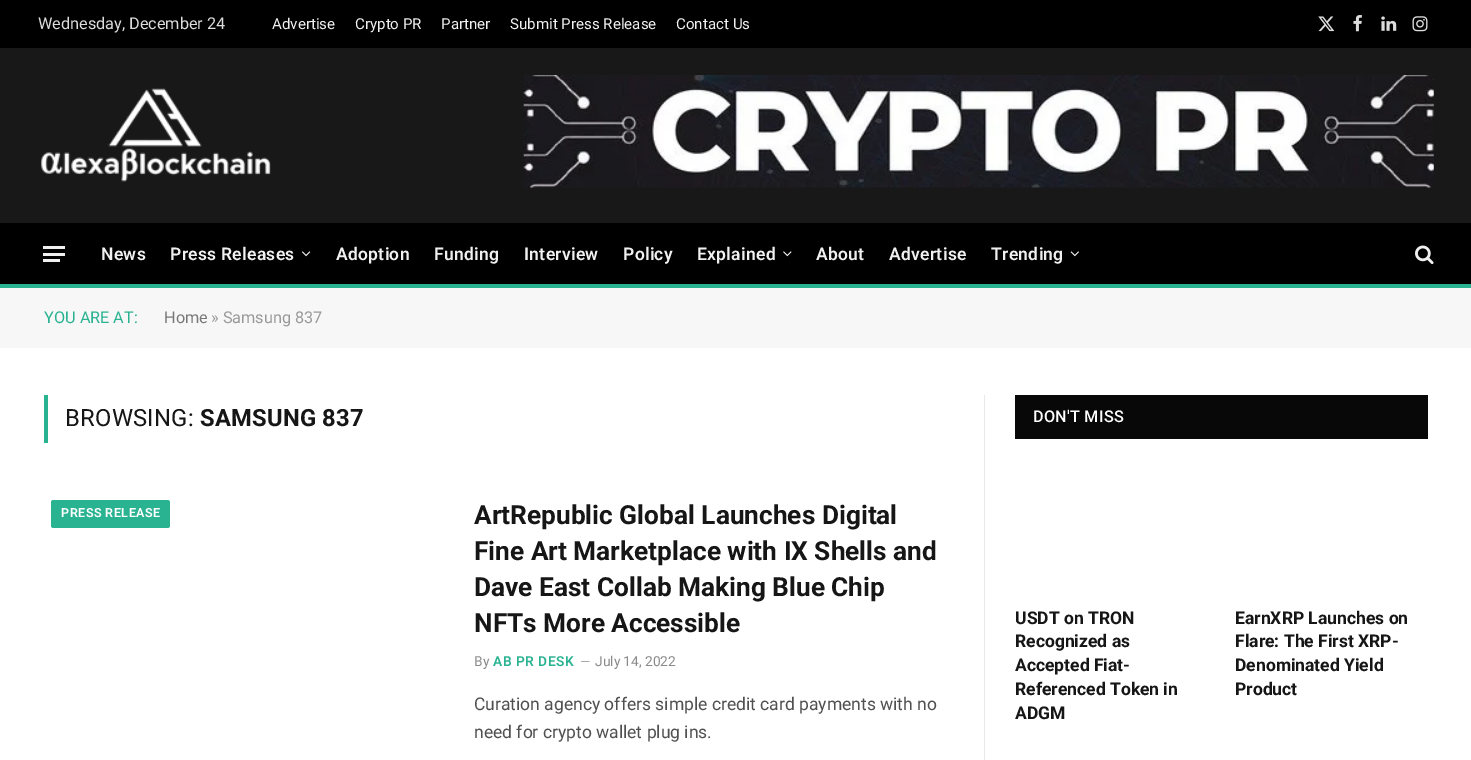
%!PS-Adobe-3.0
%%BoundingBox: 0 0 1471 760
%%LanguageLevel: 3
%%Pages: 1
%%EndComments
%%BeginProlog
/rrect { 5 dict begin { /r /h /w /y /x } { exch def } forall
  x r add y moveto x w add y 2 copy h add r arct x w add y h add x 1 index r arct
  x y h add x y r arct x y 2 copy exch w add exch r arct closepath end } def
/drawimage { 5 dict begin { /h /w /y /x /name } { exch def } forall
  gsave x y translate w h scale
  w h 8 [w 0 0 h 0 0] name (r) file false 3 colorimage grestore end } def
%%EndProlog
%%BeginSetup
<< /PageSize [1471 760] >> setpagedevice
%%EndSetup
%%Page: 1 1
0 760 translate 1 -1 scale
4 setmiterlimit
1 setgray
0 0 1471 760 rectfill
0 setgray
0 0 1471 48 rectfill
(images/1.raw) 1318 16 17 16 drawimage
(images/2.raw) 1353 15 9 17 drawimage
(images/3.raw) 1381 16 16 15 drawimage
(images/4.raw) 1412 16 16 16 drawimage
0.094 setgray
0 48 1471 175 rectfill
(images/5.raw) 40 88 231 94 drawimage
(images/6.raw) 523 75 911 113 drawimage
0 setgray
0 223 1471 61 rectfill
0.165 0.702 0.569 setrgbcolor
0 284 1471 4 rectfill
0.941 setgray
43 259 17 3 rectfill
43 246 22 3 rectfill
43 253 22 3 rectfill
(images/7.raw) 302 251 9 6 drawimage
(images/8.raw) 783 251 9 6 drawimage
(images/9.raw) 1070 251 9 6 drawimage
(images/10.raw) 1415 245 19 20 drawimage
0.969 setgray
0 288 1471 60 rectfill
0.165 0.702 0.569 setrgbcolor
44 395 4 48 rectfill
51 500 119 28 2.5 rrect fill
0.91 setgray
984 395 1 365 rectfill
0.031 setgray
1015 395 413 44 rectfill
/Roboto-Regular [16.25 0 0 -16.25 0 0] selectfont
0.867 setgray
38 29 moveto (Wednesday, December 24) show
/Roboto-Regular [15.1 0 0 -15.1 0 0] selectfont
0.941 setgray
272 29 moveto (Advertise) show
355 29 moveto (Crypto PR) show
441 29 moveto (Partner) show
510 29 moveto (Submit Press Release) show
676 29 moveto (Contact Us) show
/Roboto-SemiBold [17.5 0 0 -17.5 0 0] selectfont
101 260 moveto 0.3 0 (News) ashow
170 260 moveto 0.3 0 (Press Releases) ashow
336 260 moveto 0.3 0 (Adoption) ashow
434 260 moveto 0.3 0 (Funding) ashow
524 260 moveto 0.3 0 (Interview) ashow
623 260 moveto 0.3 0 (Policy) ashow
697 260 moveto 0.3 0 (Explained) ashow
816 260 moveto 0.3 0 (About) ashow
889 260 moveto 0.3 0 (Advertise) ashow
991 260 moveto 0.3 0 (Trending) ashow
/Roboto-Regular [16.25 0 0 -16.25 0 0] selectfont
0.165 0.702 0.569 setrgbcolor
44 323 moveto (YOU ARE AT:) show
0.467 setgray
164 323 moveto (Home) show
0.6 setgray
211 323 moveto (» Samsung 837) show
/Roboto-Regular [23.75 0 0 -23.75 0 0] selectfont
0.086 setgray
65 426 moveto 0.25 0 (BROWSING:) ashow
/Roboto-Bold [23.75 0 0 -23.75 0 0] selectfont
200 426 moveto 0.25 0 (SAMSUNG 837) ashow
/Roboto-SemiBold [12.5 0 0 -12.5 0 0] selectfont
1 setgray
61 517 moveto 0.5 0 (PRESS RELEASE) ashow
/Roboto-Bold [26.25 0 0 -26.25 0 0] selectfont
0.086 setgray
474 524 moveto (ArtRepublic Global Launches Digital) show
474 560 moveto (Fine Art Marketplace with IX Shells and) show
474 596 moveto (Dave East Collab Making Blue Chip) show
474 632 moveto (NFTs More Accessible) show
/Roboto-Regular [13.75 0 0 -13.75 0 0] selectfont
0.541 setgray
474 666 moveto (By) show
/Roboto-SemiBold [13.75 0 0 -13.75 0 0] selectfont
0.165 0.702 0.569 setrgbcolor
493 666 moveto 0.5 0 (AB PR DESK) ashow
/Roboto-Regular [13 0 0 -13 0 0] selectfont
0.541 setgray
580 666 moveto (—) show
/Roboto-Regular [13.75 0 0 -13.75 0 0] selectfont
595 666 moveto (July 14, 2022) show
/Roboto-Regular [17.5 0 0 -17.5 0 0] selectfont
0.314 setgray
474 710 moveto (Curation agency offers simple credit card payments with no) show
474 738 moveto (need for crypto wallet plug ins.) show
/Roboto-Medium [16.25 0 0 -16.25 0 0] selectfont
1 setgray
1033 422 moveto 0.25 0 (DON'T MISS) ashow
/Roboto-Bold [17.5 0 0 -17.5 0 0] selectfont
0.086 setgray
1015 624 moveto (USDT on TRON) show
1015 647 moveto (Recognized as) show
1015 671 moveto (Accepted Fiat-) show
1015 695 moveto (Referenced Token in) show
1015 719 moveto (ADGM) show
1235 624 moveto (EarnXRP Launches on) show
1235 647 moveto (Flare: The First XRP-) show
1235 671 moveto (Denominated Yield) show
1235 695 moveto (Product) show
showpage
%%EOF
